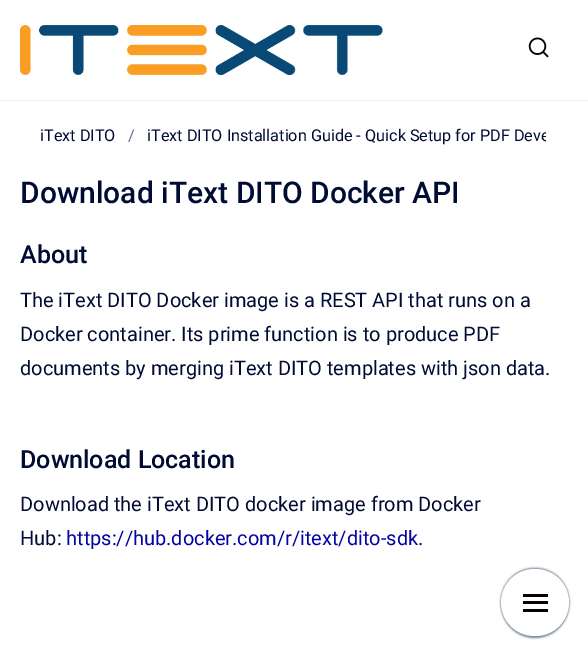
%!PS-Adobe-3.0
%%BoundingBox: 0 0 588 656
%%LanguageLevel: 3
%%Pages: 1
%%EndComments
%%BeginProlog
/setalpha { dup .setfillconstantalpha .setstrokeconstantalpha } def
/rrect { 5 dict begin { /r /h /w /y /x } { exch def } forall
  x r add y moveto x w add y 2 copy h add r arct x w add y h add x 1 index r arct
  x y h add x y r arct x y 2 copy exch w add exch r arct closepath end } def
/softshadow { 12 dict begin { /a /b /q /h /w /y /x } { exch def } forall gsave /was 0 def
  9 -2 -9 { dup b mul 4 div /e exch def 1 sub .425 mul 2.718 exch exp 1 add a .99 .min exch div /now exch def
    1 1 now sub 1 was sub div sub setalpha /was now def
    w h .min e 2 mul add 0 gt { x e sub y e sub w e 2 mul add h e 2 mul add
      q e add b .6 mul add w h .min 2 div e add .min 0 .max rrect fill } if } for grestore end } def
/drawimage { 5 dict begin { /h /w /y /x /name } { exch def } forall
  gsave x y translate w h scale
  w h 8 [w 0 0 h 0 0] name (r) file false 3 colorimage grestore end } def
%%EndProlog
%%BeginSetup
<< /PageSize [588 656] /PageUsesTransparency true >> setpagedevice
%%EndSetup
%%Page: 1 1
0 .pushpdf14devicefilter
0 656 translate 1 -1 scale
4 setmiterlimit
1 setgray
0 0 588 656 rectfill
0.937 0.941 0.957 setrgbcolor
0 100 588 1 rectfill
(images/1.raw) 20 25 363 50 drawimage
(images/2.raw) 528 37 21 21 drawimage
0.478 0.525 0.604 setrgbcolor
501 568 68 67 33.5 1 1 softshadow
501 570 68 68 34 1 1 softshadow
1 setgray
501 569 68 67 33.5 rrect fill
0.024 0 0 setrgbcolor
523 594 25 3 rectfill
523 601 25 3 rectfill
523 609 25 3 rectfill
/Roboto-Regular [16.25 0 0 -16.25 0 0] selectfont
0 0.047 0.204 setrgbcolor
40 141 moveto (iText DITO) show
0.365 0.42 0.561 setrgbcolor
128 141 moveto (/) show
gsave
38 121 508 30 rectclip
0 0.047 0.204 setrgbcolor
147 141 moveto (iText DITO Installation Guide - Quick Setup for PDF Deve) show
grestore
/Roboto-Medium [30 0 0 -30 0 0] selectfont
0 0.047 0.204 setrgbcolor
20 203 moveto (Download iText DITO Docker API) show
/Roboto-Medium [25 0 0 -25 0 0] selectfont
20 263 moveto (About) show
/Roboto-Regular [20 0 0 -20 0 0] selectfont
20 307 moveto (The iText DITO Docker image is a REST API that runs on a) show
20 341 moveto (Docker container. Its prime function is to produce PDF) show
20 375 moveto (documents by merging iText DITO templates with json data.) show
/Roboto-Medium [25 0 0 -25 0 0] selectfont
20 468 moveto (Download Location) show
/Roboto-Regular [20 0 0 -20 0 0] selectfont
20 511 moveto (Download the iText DITO docker image from Docker) show
20 545 moveto (Hub:) show
0.016 0.016 0.639 setrgbcolor
66 545 moveto (https://hub.docker.com/r/itext/dito-sdk) show
0 0.047 0.204 setrgbcolor
418 545 moveto (.) show
.poppdf14devicefilter showpage
%%EOF
